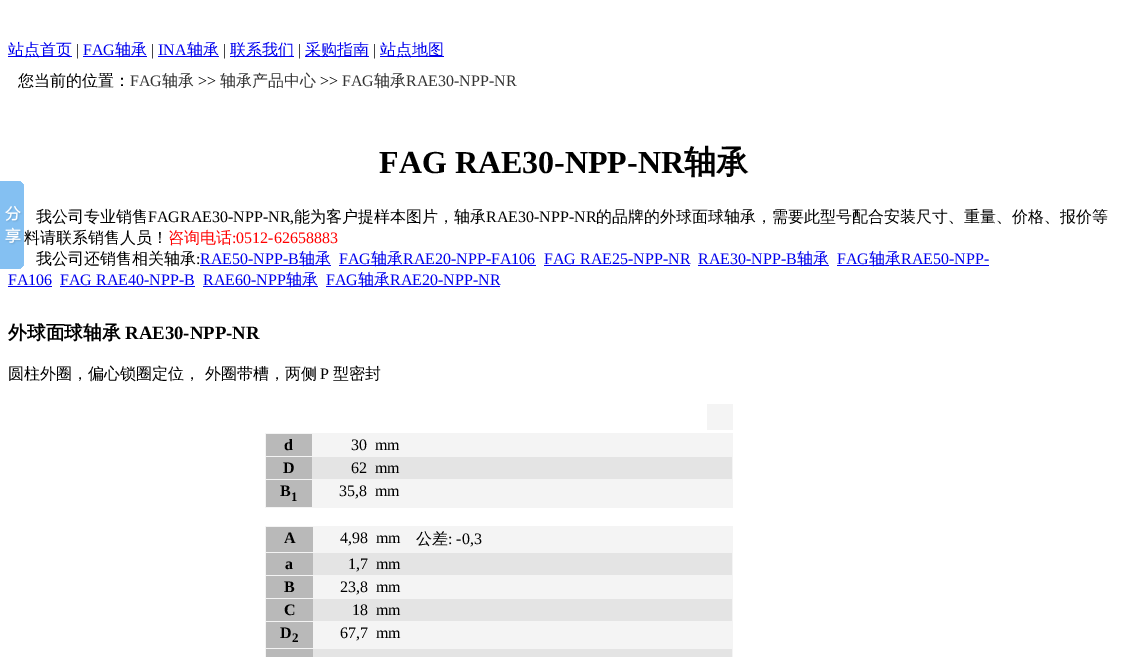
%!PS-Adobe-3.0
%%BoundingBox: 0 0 1127 657
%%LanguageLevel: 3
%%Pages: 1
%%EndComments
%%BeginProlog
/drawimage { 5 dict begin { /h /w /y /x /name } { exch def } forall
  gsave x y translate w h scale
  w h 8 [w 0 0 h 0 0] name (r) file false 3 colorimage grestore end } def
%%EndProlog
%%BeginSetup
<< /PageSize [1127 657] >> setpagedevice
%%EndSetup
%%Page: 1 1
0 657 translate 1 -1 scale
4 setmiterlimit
1 setgray
0 0 1127 657 rectfill
0 0 0.933 setrgbcolor
8 56 64 1 rectfill
83 56 64 1 rectfill
158 56 61 1 rectfill
230 56 64 1 rectfill
305 56 64 1 rectfill
380 56 64 1 rectfill
200 265 131 1 rectfill
339 265 197 1 rectfill
544 265 146 1 rectfill
698 265 131 1 rectfill
837 265 152 1 rectfill
8 286 44 1 rectfill
60 286 135 1 rectfill
203 286 115 1 rectfill
326 286 174 1 rectfill
0.957 setgray
707 404 26 26 rectfill
265 433 468 75 rectfill
0.725 setgray
266 434 46 22 rectfill
0.894 setgray
312 457 420 22 rectfill
0.725 setgray
266 457 46 22 rectfill
266 480 46 27 rectfill
0.957 setgray
265 526 468 131 rectfill
0.725 setgray
266 527 47 25 rectfill
0.894 setgray
313 553 419 22 rectfill
0.725 setgray
266 553 47 22 rectfill
266 576 47 22 rectfill
0.894 setgray
313 599 419 22 rectfill
0.725 setgray
266 599 47 22 rectfill
266 622 47 26 rectfill
0.894 setgray
313 649 419 8 rectfill
0.725 setgray
266 649 47 8 rectfill
(images/1.raw) 0 181 24 88 drawimage
/WenQuanYiZenHei-Medium [16 0 0 -16 0 0] selectfont
0 0 0.933 setrgbcolor
8 55 moveto (站点首页) show
/LiberationSerif-Regular [16 0 0 -16 0 0] selectfont
0 setgray
76 55 moveto (|) show
0 0 0.933 setrgbcolor
83 55 moveto (FAG) show
/WenQuanYiZenHei-Medium [16 0 0 -16 0 0] selectfont
115 55 moveto (轴承) show
/LiberationSerif-Regular [16 0 0 -16 0 0] selectfont
0 setgray
151 55 moveto (|) show
0 0 0.933 setrgbcolor
158 55 moveto (INA) show
/WenQuanYiZenHei-Medium [16 0 0 -16 0 0] selectfont
187 55 moveto (轴承) show
/LiberationSerif-Regular [16 0 0 -16 0 0] selectfont
0 setgray
223 55 moveto (|) show
/WenQuanYiZenHei-Medium [16 0 0 -16 0 0] selectfont
0 0 0.933 setrgbcolor
230 55 moveto (联系我们) show
/LiberationSerif-Regular [16 0 0 -16 0 0] selectfont
0 setgray
298 55 moveto (|) show
/WenQuanYiZenHei-Medium [16 0 0 -16 0 0] selectfont
0 0 0.933 setrgbcolor
305 55 moveto (采购指南) show
/LiberationSerif-Regular [16 0 0 -16 0 0] selectfont
0 setgray
373 55 moveto (|) show
/WenQuanYiZenHei-Medium [16 0 0 -16 0 0] selectfont
0 0 0.933 setrgbcolor
380 55 moveto (站点地图) show
0 setgray
18 86 moveto (您当前的位置：) show
/LiberationSerif-Regular [16 0 0 -16 0 0] selectfont
0.2 setgray
130 86 moveto (FAG) show
/WenQuanYiZenHei-Medium [16 0 0 -16 0 0] selectfont
162 86 moveto (轴承) show
/LiberationSerif-Regular [16 0 0 -16 0 0] selectfont
0 setgray
198 86 moveto (>>) show
/WenQuanYiZenHei-Medium [16 0 0 -16 0 0] selectfont
0.2 setgray
220 86 moveto (轴承产品中心) show
/LiberationSerif-Regular [16 0 0 -16 0 0] selectfont
0 setgray
320 86 moveto (>>) show
0.2 setgray
342 86 moveto (FAG) show
/WenQuanYiZenHei-Medium [16 0 0 -16 0 0] selectfont
374 86 moveto (轴承) show
/LiberationSerif-Regular [16 0 0 -16 0 0] selectfont
406 86 moveto (RAE30-NPP-NR) show
/LiberationSerif-Bold [32 0 0 -32 0 0] selectfont
0 setgray
379 173 moveto (FAG RAE30-NPP-NR) show
/WenQuanYiZenHei-Bold [32 0 0 -32 0 0] selectfont
684 173 moveto (轴承) show
/WenQuanYiZenHei-Medium [16 0 0 -16 0 0] selectfont
36 222 moveto (我公司专业销售) show
/LiberationSerif-Regular [16 0 0 -16 0 0] selectfont
148 222 moveto (FAGRAE30-NPP-NR,) show
/WenQuanYiZenHei-Medium [16 0 0 -16 0 0] selectfont
294 222 moveto (能为客户提样本图片，轴承) show
/LiberationSerif-Regular [16 0 0 -16 0 0] selectfont
486 222 moveto (RAE30-NPP-NR) show
/WenQuanYiZenHei-Medium [16 0 0 -16 0 0] selectfont
596 222 moveto (的品牌的外球面球轴承，需要此型号配合安装尺寸、重量、价格、报价等) show
24 243 moveto (料请联系销售人员！) show
1 0 0 setrgbcolor
168 243 moveto (咨询电话) show
/LiberationSerif-Regular [16 0 0 -16 0 0] selectfont
232 243 moveto (:0512-62658883) show
/WenQuanYiZenHei-Medium [16 0 0 -16 0 0] selectfont
0 setgray
36 264 moveto (我公司还销售相关轴承) show
/LiberationSerif-Regular [16 0 0 -16 0 0] selectfont
196 264 moveto (:) show
0 0 0.933 setrgbcolor
200 264 moveto (RAE50-NPP-B) show
/WenQuanYiZenHei-Medium [16 0 0 -16 0 0] selectfont
299 264 moveto (轴承) show
/LiberationSerif-Regular [16 0 0 -16 0 0] selectfont
339 264 moveto (FAG) show
/WenQuanYiZenHei-Medium [16 0 0 -16 0 0] selectfont
371 264 moveto (轴承) show
/LiberationSerif-Regular [16 0 0 -16 0 0] selectfont
403 264 moveto (RAE20-NPP-FA106) show
544 264 moveto (FAG RAE25-NPP-NR) show
698 264 moveto (RAE30-NPP-B) show
/WenQuanYiZenHei-Medium [16 0 0 -16 0 0] selectfont
797 264 moveto (轴承) show
/LiberationSerif-Regular [16 0 0 -16 0 0] selectfont
837 264 moveto (FAG) show
/WenQuanYiZenHei-Medium [16 0 0 -16 0 0] selectfont
869 264 moveto (轴承) show
/LiberationSerif-Regular [16 0 0 -16 0 0] selectfont
901 264 moveto (RAE50-NPP-) show
8 285 moveto (FA106) show
60 285 moveto (FAG RAE40-NPP-B) show
203 285 moveto (RAE60-NPP) show
/WenQuanYiZenHei-Medium [16 0 0 -16 0 0] selectfont
286 285 moveto (轴承) show
/LiberationSerif-Regular [16 0 0 -16 0 0] selectfont
326 285 moveto (FAG) show
/WenQuanYiZenHei-Medium [16 0 0 -16 0 0] selectfont
358 285 moveto (轴承) show
/LiberationSerif-Regular [16 0 0 -16 0 0] selectfont
390 285 moveto (RAE20-NPP-NR) show
/WenQuanYiZenHei-Bold [18.75 0 0 -18.75 0 0] selectfont
0 setgray
8 339 moveto (外球面球轴承) show
/LiberationSerif-Bold [18.75 0 0 -18.75 0 0] selectfont
125 339 moveto (RAE30-NPP-NR) show
/WenQuanYiZenHei-Medium [16 0 0 -16 0 0] selectfont
8 379 moveto (圆柱外圈，偏心锁圈定位， 外圈带槽，两侧) show
/LiberationSerif-Regular [16 0 0 -16 0 0] selectfont
320 379 moveto (P) show
/WenQuanYiZenHei-Medium [16 0 0 -16 0 0] selectfont
333 379 moveto (型密封) show
/LiberationSerif-Bold [16 0 0 -16 0 0] selectfont
284 450 moveto (d) show
/LiberationSerif-Regular [16 0 0 -16 0 0] selectfont
351 450 moveto (30) show
375 450 moveto (mm) show
/LiberationSerif-Bold [16 0 0 -16 0 0] selectfont
283 473 moveto (D) show
/LiberationSerif-Regular [16 0 0 -16 0 0] selectfont
351 473 moveto (62) show
375 473 moveto (mm) show
/LiberationSerif-Bold [16 0 0 -16 0 0] selectfont
280 496 moveto (B) show
/LiberationSerif-Bold [13 0 0 -13 0 0] selectfont
291 501 moveto (1) show
/LiberationSerif-Regular [16 0 0 -16 0 0] selectfont
339 496 moveto (35,8) show
375 496 moveto (mm) show
/LiberationSerif-Bold [16 0 0 -16 0 0] selectfont
284 543 moveto (A) show
/LiberationSerif-Regular [16 0 0 -16 0 0] selectfont
340 543 moveto (4,98) show
376 543 moveto (mm) show
/WenQuanYiZenHei-Medium [16 0 0 -16 0 0] selectfont
416 544 moveto (公差) show
/LiberationSerif-Regular [16 0 0 -16 0 0] selectfont
448 544 moveto (: -0,3) show
/LiberationSerif-Bold [16 0 0 -16 0 0] selectfont
285 569 moveto (a) show
/LiberationSerif-Regular [16 0 0 -16 0 0] selectfont
348 569 moveto (1,7) show
376 569 moveto (mm) show
/LiberationSerif-Bold [16 0 0 -16 0 0] selectfont
284 592 moveto (B) show
/LiberationSerif-Regular [16 0 0 -16 0 0] selectfont
340 592 moveto (23,8) show
376 592 moveto (mm) show
/LiberationSerif-Bold [16 0 0 -16 0 0] selectfont
284 615 moveto (C) show
/LiberationSerif-Regular [16 0 0 -16 0 0] selectfont
352 615 moveto (18) show
376 615 moveto (mm) show
/LiberationSerif-Bold [16 0 0 -16 0 0] selectfont
280 638 moveto (D) show
/LiberationSerif-Bold [13 0 0 -13 0 0] selectfont
292 642 moveto (2) show
/LiberationSerif-Regular [16 0 0 -16 0 0] selectfont
340 638 moveto (67,7) show
376 638 moveto (mm) show
showpage
%%EOF
